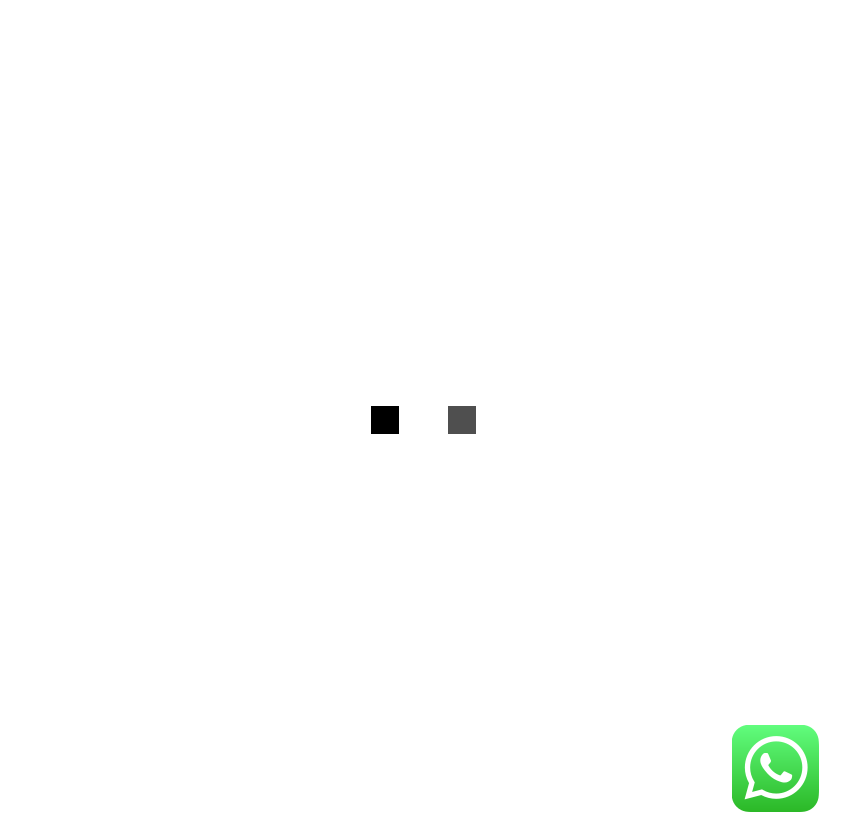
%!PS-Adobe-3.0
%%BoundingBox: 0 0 844 838
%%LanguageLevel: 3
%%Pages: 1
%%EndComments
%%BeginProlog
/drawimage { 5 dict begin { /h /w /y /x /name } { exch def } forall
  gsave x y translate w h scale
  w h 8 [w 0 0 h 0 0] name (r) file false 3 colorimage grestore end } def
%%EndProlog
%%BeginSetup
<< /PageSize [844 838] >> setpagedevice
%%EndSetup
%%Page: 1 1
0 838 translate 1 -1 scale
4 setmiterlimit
1 setgray
0 0 844 838 rectfill
0 setgray
371 406 28 28 rectfill
0.31 setgray
448 406 28 28 rectfill
(images/1.raw) 732 725 87 87 drawimage
showpage
%%EOF
